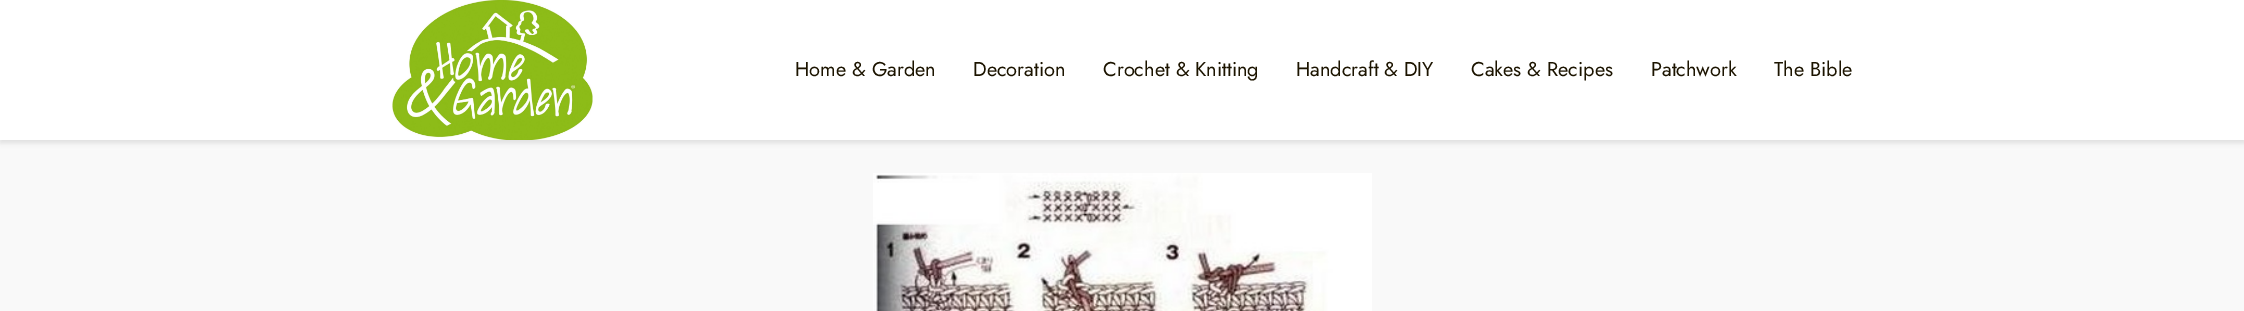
%!PS-Adobe-3.0
%%BoundingBox: 0 0 2244 311
%%LanguageLevel: 3
%%Pages: 1
%%EndComments
%%BeginProlog
/setalpha { dup .setfillconstantalpha .setstrokeconstantalpha } def
/rrect { 5 dict begin { /r /h /w /y /x } { exch def } forall
  x r add y moveto x w add y 2 copy h add r arct x w add y h add x 1 index r arct
  x y h add x y r arct x y 2 copy exch w add exch r arct closepath end } def
/softshadow { 12 dict begin { /a /b /q /h /w /y /x } { exch def } forall gsave /was 0 def
  9 -2 -9 { dup b mul 4 div /e exch def 1 sub .425 mul 2.718 exch exp 1 add a .99 .min exch div /now exch def
    1 1 now sub 1 was sub div sub setalpha /was now def
    w h .min e 2 mul add 0 gt { x e sub y e sub w e 2 mul add h e 2 mul add
      q e add b .6 mul add w h .min 2 div e add .min 0 .max rrect fill } if } for grestore end } def
/drawimage { 5 dict begin { /h /w /y /x /name } { exch def } forall
  gsave x y translate w h scale
  w h 8 [w 0 0 h 0 0] name (r) file false 3 colorimage grestore end } def
%%EndProlog
%%BeginSetup
<< /PageSize [2244 311] /PageUsesTransparency true >> setpagedevice
%%EndSetup
%%Page: 1 1
0 .pushpdf14devicefilter
0 311 translate 1 -1 scale
4 setmiterlimit
0.976 setgray
0 0 2244 311 rectfill
0 setgray
0 3 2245 140 0 2.5 0.1 softshadow
1 setgray
0 0 2244 140 rectfill
(images/1.raw) 392 0 201 140 drawimage
(images/2.raw) 873 173 499 138 drawimage
/Jost-Regular [20 0 0 -20 0 0] selectfont
0.11 0.078 0 setrgbcolor
795 76 moveto (Home & Garden) show
973 76 moveto (Decoration) show
1103 76 moveto (Crochet & Knitting) show
1296 76 moveto (Handcraft & DIY) show
1471 76 moveto (Cakes & Recipes) show
1651 76 moveto (Patchwork) show
1774 76 moveto (The Bible) show
.poppdf14devicefilter showpage
%%EOF
